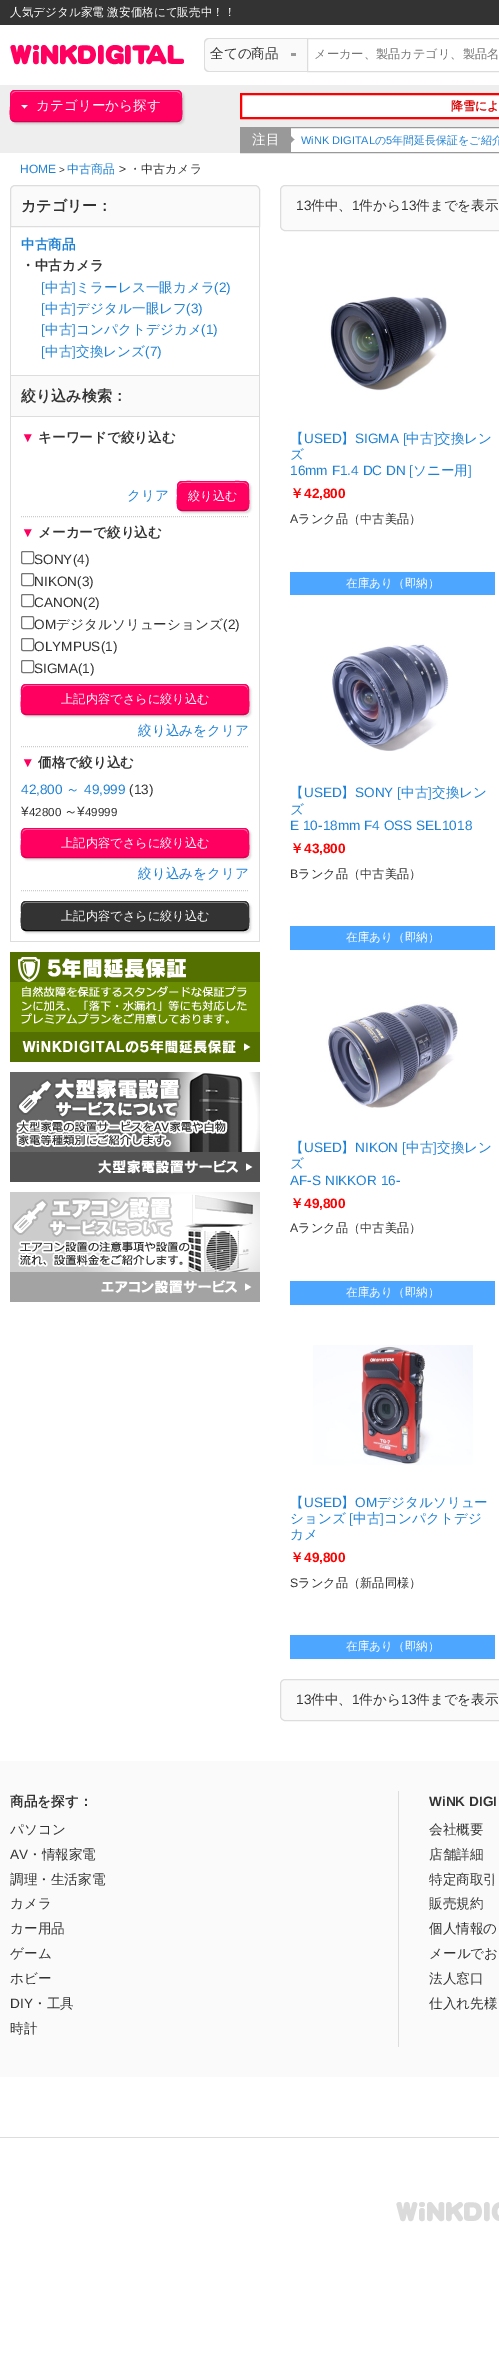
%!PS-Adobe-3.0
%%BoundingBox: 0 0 499 2377
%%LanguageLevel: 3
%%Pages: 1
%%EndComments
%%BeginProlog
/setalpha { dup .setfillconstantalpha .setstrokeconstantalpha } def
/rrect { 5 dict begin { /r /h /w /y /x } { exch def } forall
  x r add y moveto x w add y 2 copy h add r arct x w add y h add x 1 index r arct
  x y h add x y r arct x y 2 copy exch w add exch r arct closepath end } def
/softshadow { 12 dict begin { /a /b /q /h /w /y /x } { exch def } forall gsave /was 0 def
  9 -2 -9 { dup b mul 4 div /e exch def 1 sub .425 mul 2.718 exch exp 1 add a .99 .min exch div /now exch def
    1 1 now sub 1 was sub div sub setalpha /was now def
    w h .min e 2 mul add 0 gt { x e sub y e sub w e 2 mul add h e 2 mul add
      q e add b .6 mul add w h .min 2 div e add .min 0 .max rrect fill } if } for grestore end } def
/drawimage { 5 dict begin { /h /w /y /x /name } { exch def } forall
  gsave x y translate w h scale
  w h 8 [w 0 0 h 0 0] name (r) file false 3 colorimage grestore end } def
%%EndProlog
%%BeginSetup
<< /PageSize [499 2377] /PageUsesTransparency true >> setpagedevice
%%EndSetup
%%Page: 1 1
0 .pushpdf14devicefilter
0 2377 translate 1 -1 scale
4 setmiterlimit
1 setgray
0 0 499 2377 rectfill
0.2 setgray
0 0 499 25 rectfill
(images/1.raw) 10 45 174 20 drawimage
0.98 setgray
newpath 209 38 moveto 307 38 lineto 307 72 lineto 209 72 lineto 206 72 204 70 204 67 curveto 204 43 lineto 204 40 206 38 209 38 curveto closepath fill
0.867 setgray
newpath 209 38 moveto 307 38 lineto 307 72 lineto 209 72 lineto 206 72 204 70 204 67 curveto 204 43 lineto 204 40 206 38 209 38 curveto closepath 209 39 moveto 307 39 lineto 307 71 lineto 209 71 lineto 207 71 205 69 205 67 curveto 205 43 lineto 205 41 207 39 209 39 curveto closepath eofill
0.6 setgray
291 53 5 3 rectfill
0.867 setgray
307.5 38.5 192 33 rectstroke
0.933 setgray
0 85 499 68 rectfill
0 setgray
12 92 172 32 5 1 0.15 softshadow
1 0 0.376 setrgbcolor
10 90 172 32 5 rrect fill
(images/2.raw) 21 105 7 4 drawimage
1 0.502 0.69 setrgbcolor
newpath 15 92 moveto 177 92 lineto 179 92 181 94 181 96 curveto 181 95 lineto 181 93 179 91 177 91 curveto 15 91 lineto 13 91 11 93 11 95 curveto 11 96 lineto 11 94 13 92 15 92 curveto closepath fill
0.831 0 0.314 setrgbcolor
newpath 180 120 moveto 179.5 121 178 121.5 177 121.5 curveto 15 121.5 lineto 14 121.5 12.5 121 12 120 curveto stroke
1 0 0.376 setrgbcolor
newpath 12 120 moveto 9 117.5 10.5 109 10.5 106 curveto 10.5 98.5 lineto 10.5 95.5 10.5 90.5 15 90.5 curveto 177 90.5 lineto 181.5 90.5 181.5 95.5 181.5 98.5 curveto 181.5 106 lineto 181.5 109 183 117.5 180 120 curveto stroke
1 setgray
newpath 241 94 moveto 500 94 lineto 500 118 lineto 241 118 lineto closepath gsave fill grestore
1 0 0 setrgbcolor
2 setlinewidth
stroke
1 setgray
291 128 208 24 rectfill
0.6 setgray
1 setlinewidth
240.5 127.5 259 25 rectstroke
241 128 50 24 rectfill
(images/3.raw) 291 136 4 7 drawimage
0.98 setgray
newpath 15 185.5 moveto 255 185.5 lineto 257.5 185.5 259.5 187.5 259.5 190 curveto 259.5 226.5 lineto 10.5 226.5 lineto 10.5 190 lineto 10.5 187.5 12.5 185.5 15 185.5 curveto closepath gsave fill grestore
0.867 setgray
stroke
259 227 1 715 rectfill
10 375 250 1 rectfill
10 227 1 149 rectfill
0.98 setgray
11 376 248 40 rectfill
0.867 setgray
10 416 250 1 rectfill
10 376 1 41 rectfill
10 941 250 1 rectfill
10 417 1 525 rectfill
0.8 setgray
[1 1] 0 setdash
newpath 21 516.5 moveto 249 516.5 lineto stroke
0 setgray
179 483 72 30 5 1 0.15 softshadow
1 0 0.376 setrgbcolor
177 481 72 30 5 rrect fill
1 0.502 0.69 setrgbcolor
newpath 182 483 moveto 244 483 lineto 246 483 248 485 248 487 curveto 248 480 239 482 234 482 curveto 192 482 lineto 187 482 178 480 178 487 curveto 178 485 180 483 182 483 curveto closepath fill
0.831 0 0.314 setrgbcolor
[] 0 setdash
newpath 247 509 moveto 244.5 510.5 lineto 181.5 510.5 lineto 179 509 lineto stroke
1 0 0.376 setrgbcolor
newpath 179 509 moveto 176 506.5 177.5 499 177.5 496 curveto 177.5 480.5 176 481.5 192.5 481.5 curveto 233.5 481.5 lineto 250 481.5 248.5 480.5 248.5 496 curveto 248.5 499 250 506.5 247 509 curveto stroke
0.8 setgray
[1 1] 0 setdash
newpath 21 746.5 moveto 249 746.5 lineto stroke
0.463 setgray
[] 0 setdash
21.5 551.5 12 12 1.5 rrect stroke
21.5 573.5 12 12 1.5 rrect stroke
21.5 594.5 12 12 1.5 rrect stroke
21.5 616.5 12 12 1.5 rrect stroke
21.5 638.5 12 12 1.5 rrect stroke
21.5 660.5 12 12 1.5 rrect stroke
0 setgray
23 686 228 31 5 1 0.15 softshadow
1 0 0.376 setrgbcolor
21 684 228 31 5 rrect fill
1 0.502 0.69 setrgbcolor
newpath 26 686 moveto 244 686 lineto 246 686 248 688 248 690 curveto 248 687 247 685 244 685 curveto 26 685 lineto 23 685 22 687 22 690 curveto 22 688 24 686 26 686 curveto closepath fill
0.831 0 0.314 setrgbcolor
newpath 247 713 moveto 244 714.5 lineto 25.5 714.5 lineto 23 713 lineto stroke
1 0 0.376 setrgbcolor
newpath 23 713 moveto 20 710.5 21.5 699.5 21.5 696 curveto 21.5 692.5 20 684.5 26 684.5 curveto 244 684.5 lineto 250 684.5 248.5 692.5 248.5 696 curveto 248.5 699.5 250 710.5 247 713 curveto stroke
0.8 setgray
[1 1] 0 setdash
newpath 21 890.5 moveto 249 890.5 lineto stroke
0 setgray
23 830 228 30 5 1 0.15 softshadow
1 0 0.376 setrgbcolor
21 828 228 30 5 rrect fill
1 0.502 0.69 setrgbcolor
newpath 26 830 moveto 244 830 lineto 246 830 248 832 248 834 curveto 248 831 247 829 244 829 curveto 26 829 lineto 23 829 22 831 22 834 curveto 22 832 24 830 26 830 curveto closepath fill
0.831 0 0.314 setrgbcolor
[] 0 setdash
newpath 247 856 moveto 244 857.5 lineto 25.5 857.5 lineto 23 856 lineto stroke
1 0 0.376 setrgbcolor
newpath 23 856 moveto 20 853.5 21.5 843 21.5 839.5 curveto 21.5 836 20 828.5 26 828.5 curveto 244 828.5 lineto 250 828.5 248.5 836 248.5 839.5 curveto 248.5 843 250 853.5 247 856 curveto stroke
0 setgray
23 903 228 30 5 1 0.15 softshadow
0.2 setgray
21 901 228 30 5 rrect fill
0.6 setgray
newpath 26 903 moveto 244 903 lineto 246 903 248 905 248 907 curveto 248 904 247 902 244 902 curveto 26 902 lineto 23 902 22 904 22 907 curveto 22 905 24 903 26 903 curveto closepath fill
0 setgray
newpath 247 929 moveto 244 930.5 lineto 25.5 930.5 lineto 23 929 lineto stroke
0.2 setgray
newpath 23 929 moveto 20 926.5 21.5 916 21.5 912.5 curveto 21.5 909 20 901.5 26 901.5 curveto 244 901.5 lineto 250 901.5 248.5 909 248.5 912.5 curveto 248.5 916 250 926.5 247 929 curveto stroke
(images/4.raw) 10 952 250 110 drawimage
(images/5.raw) 10 1072 250 110 drawimage
(images/6.raw) 10 1192 250 110 drawimage
0.98 setgray
280.5 185.5 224 45 4.5 rrect gsave fill grestore
0.867 setgray
stroke
(images/7.raw) 329 296 118 95 drawimage
0.302 0.651 1 setrgbcolor
290 572 205 23 rectfill
(images/8.raw) 331 643 118 108 drawimage
290 926 205 24 rectfill
(images/9.raw) 326 1002 132 106 drawimage
290 1281 205 24 rectfill
(images/10.raw) 313 1345 160 120 drawimage
290 1635 205 24 rectfill
0.98 setgray
280.5 1679.5 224 41 4.5 rrect gsave fill grestore
0.867 setgray
stroke
0.98 setgray
0 1761 499 316 rectfill
0.867 setgray
398 1791 1 256 rectfill
0 2137 499 1 rectfill
(images/11.raw) 396 2202 103 20 drawimage
/WenQuanYiZenHei-Medium [11.6 0 0 -11.6 0 0] selectfont
1 setgray
10 16 moveto (人気デジタル家電 激安価格にて販売中！！) show
/WenQuanYiZenHei-Medium [13.6 0 0 -13.6 0 0] selectfont
0.2 setgray
210 58 moveto (全ての商品) show
/WenQuanYiZenHei-Medium [12.25 0 0 -12.25 0 0] selectfont
0.459 setgray
314 58 moveto (メーカー、製品カテゴリ、製品名) show
/WenQuanYiZenHei-Medium [13.6 0 0 -13.6 0 0] selectfont
1 setgray
36 110 moveto (カテゴリーから探す) show
/WenQuanYiZenHei-Bold [12 0 0 -12 0 0] selectfont
0.847 0 0 setrgbcolor
451 110 moveto (降雪によ) show
/WenQuanYiZenHei-Medium [13.6 0 0 -13.6 0 0] selectfont
1 setgray
252 144 moveto (注目) show
/LiberationSans-Regular [11 0 0 -11 0 0] selectfont
0.118 0.506 0.831 setrgbcolor
301 144 moveto (WiNK DIGITAL) show
/WenQuanYiZenHei-Medium [11 0 0 -11 0 0] selectfont
375 144 moveto (の) show
/LiberationSans-Regular [11 0 0 -11 0 0] selectfont
386 144 moveto (5) show
/WenQuanYiZenHei-Medium [11 0 0 -11 0 0] selectfont
392 144 moveto (年間延長保証をご紹介) show
/LiberationSans-Regular [12 0 0 -12 0 0] selectfont
20 173 moveto (HOME) show
/LiberationSans-Regular [10 0 0 -10 0 0] selectfont
0.2 setgray
59 173 moveto (>) show
/WenQuanYiZenHei-Medium [12 0 0 -12 0 0] selectfont
0.118 0.506 0.831 setrgbcolor
67 173 moveto (中古商品) show
/LiberationSans-Regular [12 0 0 -12 0 0] selectfont
0.2 setgray
119 173 moveto (>) show
/WenQuanYiZenHei-Medium [12 0 0 -12 0 0] selectfont
129 173 moveto (・中古カメラ) show
/WenQuanYiZenHei-Bold [15 0 0 -15 0 0] selectfont
21 211 moveto (カテゴリー：) show
/WenQuanYiZenHei-Bold [13.6 0 0 -13.6 0 0] selectfont
0.118 0.506 0.831 setrgbcolor
21 249 moveto (中古商品) show
0.2 setgray
21 270 moveto (・中古カメラ) show
/LiberationSans-Regular [13.6 0 0 -13.6 0 0] selectfont
0.118 0.506 0.831 setrgbcolor
41 292 moveto ([) show
/WenQuanYiZenHei-Medium [13.6 0 0 -13.6 0 0] selectfont
45 292 moveto (中古 ミラーレス一眼カメラ) show
/LiberationSans-Regular [13.6 0 0 -13.6 0 0] selectfont
72 292 moveto (]) show
214 292 moveto (\(2\)) show
41 313 moveto ([) show
/WenQuanYiZenHei-Medium [13.6 0 0 -13.6 0 0] selectfont
45 313 moveto (中古 デジタル一眼レフ) show
/LiberationSans-Regular [13.6 0 0 -13.6 0 0] selectfont
72 313 moveto (]) show
186 313 moveto (\(3\)) show
41 334 moveto ([) show
/WenQuanYiZenHei-Medium [13.6 0 0 -13.6 0 0] selectfont
45 334 moveto (中古 コンパクトデジカメ) show
/LiberationSans-Regular [13.6 0 0 -13.6 0 0] selectfont
72 334 moveto (]) show
201 334 moveto (\(1\)) show
41 356 moveto ([) show
/WenQuanYiZenHei-Medium [13.6 0 0 -13.6 0 0] selectfont
45 356 moveto (中古 交換レンズ) show
/LiberationSans-Regular [13.6 0 0 -13.6 0 0] selectfont
72 356 moveto (]) show
145 356 moveto (\(7\)) show
/WenQuanYiZenHei-Bold [15 0 0 -15 0 0] selectfont
0.2 setgray
21 401 moveto (絞り込み検索：) show
/LiberationSans-Bold [13.6 0 0 -13.6 0 0] selectfont
1 0 0.376 setrgbcolor
21 442 moveto (▼) show
/WenQuanYiZenHei-Bold [13.6 0 0 -13.6 0 0] selectfont
0.2 setgray
38 442 moveto (キーワードで絞り込む) show
/WenQuanYiZenHei-Medium [13.6 0 0 -13.6 0 0] selectfont
0.118 0.506 0.831 setrgbcolor
127 500 moveto (クリア) show
/WenQuanYiZenHei-Medium [12.25 0 0 -12.25 0 0] selectfont
1 setgray
188 500 moveto (絞り込む) show
/LiberationSans-Bold [13.6 0 0 -13.6 0 0] selectfont
1 0 0.376 setrgbcolor
21 537 moveto (▼) show
/WenQuanYiZenHei-Bold [13.6 0 0 -13.6 0 0] selectfont
0.2 setgray
38 537 moveto (メーカーで絞り込む) show
/LiberationSans-Regular [13.6 0 0 -13.6 0 0] selectfont
34 564 moveto (SONY\(4\)) show
34 586 moveto (NIKON\(3\)) show
34 607 moveto (CANON\(2\)) show
34 629 moveto (OM) show
/WenQuanYiZenHei-Medium [13.6 0 0 -13.6 0 0] selectfont
56 629 moveto (デジタルソリューションズ) show
/LiberationSans-Regular [13.6 0 0 -13.6 0 0] selectfont
223 629 moveto (\(2\)) show
34 651 moveto (OLYMPUS\(1\)) show
34 673 moveto (SIGMA\(1\)) show
/WenQuanYiZenHei-Medium [12.25 0 0 -12.25 0 0] selectfont
1 setgray
61 703 moveto (上記内容でさらに絞り込む) show
/WenQuanYiZenHei-Medium [13.6 0 0 -13.6 0 0] selectfont
0.118 0.506 0.831 setrgbcolor
138 735 moveto (絞り込みをクリア) show
/LiberationSans-Bold [13.6 0 0 -13.6 0 0] selectfont
1 0 0.376 setrgbcolor
21 767 moveto (▼) show
/WenQuanYiZenHei-Bold [13.6 0 0 -13.6 0 0] selectfont
0.2 setgray
38 767 moveto (価格で絞り込む) show
/LiberationSans-Regular [13.6 0 0 -13.6 0 0] selectfont
0.118 0.506 0.831 setrgbcolor
21 794 moveto (42,800) show
/WenQuanYiZenHei-Medium [13.6 0 0 -13.6 0 0] selectfont
66 794 moveto (～) show
/LiberationSans-Regular [13.6 0 0 -13.6 0 0] selectfont
84 794 moveto (49,999) show
0.2 setgray
129 794 moveto (\(13\)) show
21 816 moveto (¥) show
/LiberationSans-Regular [11.6 0 0 -11.6 0 0] selectfont
29 816 moveto (42800) show
/WenQuanYiZenHei-Medium [13.6 0 0 -13.6 0 0] selectfont
64 816 moveto (～) show
/LiberationSans-Regular [13.6 0 0 -13.6 0 0] selectfont
77 816 moveto (¥) show
/LiberationSans-Regular [11.6 0 0 -11.6 0 0] selectfont
85 816 moveto (49999) show
/WenQuanYiZenHei-Medium [12.25 0 0 -12.25 0 0] selectfont
1 setgray
61 847 moveto (上記内容でさらに絞り込む) show
/WenQuanYiZenHei-Medium [13.6 0 0 -13.6 0 0] selectfont
0.118 0.506 0.831 setrgbcolor
138 878 moveto (絞り込みをクリア) show
/WenQuanYiZenHei-Medium [12.25 0 0 -12.25 0 0] selectfont
1 setgray
61 920 moveto (上記内容でさらに絞り込む) show
/LiberationSans-Regular [13.6 0 0 -13.6 0 0] selectfont
0.2 setgray
296 210 moveto (13) show
/WenQuanYiZenHei-Medium [13.6 0 0 -13.6 0 0] selectfont
311 210 moveto (件中、) show
/LiberationSans-Regular [13.6 0 0 -13.6 0 0] selectfont
352 210 moveto (1) show
/WenQuanYiZenHei-Medium [13.6 0 0 -13.6 0 0] selectfont
359 210 moveto (件から) show
/LiberationSans-Regular [13.6 0 0 -13.6 0 0] selectfont
401 210 moveto (13) show
/WenQuanYiZenHei-Medium [13.6 0 0 -13.6 0 0] selectfont
416 210 moveto (件までを表示) show
0.118 0.506 0.831 setrgbcolor
290 443 moveto (【) show
/LiberationSans-Regular [13.6 0 0 -13.6 0 0] selectfont
304 443 moveto (USED) show
/WenQuanYiZenHei-Medium [13.6 0 0 -13.6 0 0] selectfont
341 443 moveto (】) show
/LiberationSans-Regular [13.6 0 0 -13.6 0 0] selectfont
355 443 moveto (SIGMA [) show
/WenQuanYiZenHei-Medium [13.6 0 0 -13.6 0 0] selectfont
406 443 moveto (中古 交換レン) show
/LiberationSans-Regular [13.6 0 0 -13.6 0 0] selectfont
434 443 moveto (]) show
/WenQuanYiZenHei-Medium [13.6 0 0 -13.6 0 0] selectfont
290 459 moveto (ズ) show
/LiberationSans-Regular [13.6 0 0 -13.6 0 0] selectfont
290 475 moveto (16mm F1.4 DC DN [) show
/WenQuanYiZenHei-Medium [13.6 0 0 -13.6 0 0] selectfont
413 475 moveto (ソニー用) show
/LiberationSans-Regular [13.6 0 0 -13.6 0 0] selectfont
468 475 moveto (]) show
/WenQuanYiZenHei-Bold [13.6 0 0 -13.6 0 0] selectfont
1 0 0 setrgbcolor
290 498 moveto (￥) show
/LiberationSans-Bold [13.6 0 0 -13.6 0 0] selectfont
304 498 moveto (42,800) show
/LiberationSans-Regular [12.25 0 0 -12.25 0 0] selectfont
0.2 setgray
290 523 moveto (A) show
/WenQuanYiZenHei-Medium [12.25 0 0 -12.25 0 0] selectfont
298 523 moveto (ランク品（中古美品）) show
/WenQuanYiZenHei-Medium [11.6 0 0 -11.6 0 0] selectfont
1 setgray
346 587 moveto (在庫あり（即納）) show
/WenQuanYiZenHei-Medium [13.6 0 0 -13.6 0 0] selectfont
0.118 0.506 0.831 setrgbcolor
290 797 moveto (【) show
/LiberationSans-Regular [13.6 0 0 -13.6 0 0] selectfont
304 797 moveto (USED) show
/WenQuanYiZenHei-Medium [13.6 0 0 -13.6 0 0] selectfont
341 797 moveto (】) show
/LiberationSans-Regular [13.6 0 0 -13.6 0 0] selectfont
355 797 moveto (SONY [) show
/WenQuanYiZenHei-Medium [13.6 0 0 -13.6 0 0] selectfont
401 797 moveto (中古 交換レン) show
/LiberationSans-Regular [13.6 0 0 -13.6 0 0] selectfont
428 797 moveto (]) show
/WenQuanYiZenHei-Medium [13.6 0 0 -13.6 0 0] selectfont
290 814 moveto (ズ) show
/LiberationSans-Regular [13.6 0 0 -13.6 0 0] selectfont
290 830 moveto (E 10-18mm F4 OSS SEL1018) show
/WenQuanYiZenHei-Bold [13.6 0 0 -13.6 0 0] selectfont
1 0 0 setrgbcolor
290 853 moveto (￥) show
/LiberationSans-Bold [13.6 0 0 -13.6 0 0] selectfont
304 853 moveto (43,800) show
/LiberationSans-Regular [12.25 0 0 -12.25 0 0] selectfont
0.2 setgray
290 878 moveto (B) show
/WenQuanYiZenHei-Medium [12.25 0 0 -12.25 0 0] selectfont
298 878 moveto (ランク品（中古美品）) show
/WenQuanYiZenHei-Medium [11.6 0 0 -11.6 0 0] selectfont
1 setgray
346 941 moveto (在庫あり（即納）) show
/WenQuanYiZenHei-Medium [13.6 0 0 -13.6 0 0] selectfont
0.118 0.506 0.831 setrgbcolor
290 1152 moveto (【) show
/LiberationSans-Regular [13.6 0 0 -13.6 0 0] selectfont
304 1152 moveto (USED) show
/WenQuanYiZenHei-Medium [13.6 0 0 -13.6 0 0] selectfont
341 1152 moveto (】) show
/LiberationSans-Regular [13.6 0 0 -13.6 0 0] selectfont
355 1152 moveto (NIKON [) show
/WenQuanYiZenHei-Medium [13.6 0 0 -13.6 0 0] selectfont
406 1152 moveto (中古 交換レン) show
/LiberationSans-Regular [13.6 0 0 -13.6 0 0] selectfont
433 1152 moveto (]) show
/WenQuanYiZenHei-Medium [13.6 0 0 -13.6 0 0] selectfont
290 1168 moveto (ズ) show
/LiberationSans-Regular [13.6 0 0 -13.6 0 0] selectfont
290 1185 moveto (AF-S NIKKOR 16-) show
/WenQuanYiZenHei-Bold [13.6 0 0 -13.6 0 0] selectfont
1 0 0 setrgbcolor
290 1208 moveto (￥) show
/LiberationSans-Bold [13.6 0 0 -13.6 0 0] selectfont
304 1208 moveto (49,800) show
/LiberationSans-Regular [12.25 0 0 -12.25 0 0] selectfont
0.2 setgray
290 1232 moveto (A) show
/WenQuanYiZenHei-Medium [12.25 0 0 -12.25 0 0] selectfont
298 1232 moveto (ランク品（中古美品）) show
/WenQuanYiZenHei-Medium [11.6 0 0 -11.6 0 0] selectfont
1 setgray
346 1296 moveto (在庫あり（即納）) show
/WenQuanYiZenHei-Medium [13.6 0 0 -13.6 0 0] selectfont
0.118 0.506 0.831 setrgbcolor
290 1507 moveto (【) show
/LiberationSans-Regular [13.6 0 0 -13.6 0 0] selectfont
304 1507 moveto (USED) show
/WenQuanYiZenHei-Medium [13.6 0 0 -13.6 0 0] selectfont
341 1507 moveto (】) show
/LiberationSans-Regular [13.6 0 0 -13.6 0 0] selectfont
355 1507 moveto (OM) show
/WenQuanYiZenHei-Medium [13.6 0 0 -13.6 0 0] selectfont
377 1507 moveto (デジタルソリュー) show
290 1523 moveto (ションズ) show
/LiberationSans-Regular [13.6 0 0 -13.6 0 0] selectfont
349 1523 moveto ([) show
/WenQuanYiZenHei-Medium [13.6 0 0 -13.6 0 0] selectfont
353 1523 moveto (中古 コンパクトデジ) show
/LiberationSans-Regular [13.6 0 0 -13.6 0 0] selectfont
380 1523 moveto (]) show
/WenQuanYiZenHei-Medium [13.6 0 0 -13.6 0 0] selectfont
290 1539 moveto (カメ) show
/WenQuanYiZenHei-Bold [13.6 0 0 -13.6 0 0] selectfont
1 0 0 setrgbcolor
290 1562 moveto (￥) show
/LiberationSans-Bold [13.6 0 0 -13.6 0 0] selectfont
304 1562 moveto (49,800) show
/LiberationSans-Regular [12.25 0 0 -12.25 0 0] selectfont
0.2 setgray
290 1587 moveto (S) show
/WenQuanYiZenHei-Medium [12.25 0 0 -12.25 0 0] selectfont
298 1587 moveto (ランク品（新品同様）) show
/WenQuanYiZenHei-Medium [11.6 0 0 -11.6 0 0] selectfont
1 setgray
346 1650 moveto (在庫あり（即納）) show
/LiberationSans-Regular [13.6 0 0 -13.6 0 0] selectfont
0.2 setgray
296 1704 moveto (13) show
/WenQuanYiZenHei-Medium [13.6 0 0 -13.6 0 0] selectfont
311 1704 moveto (件中、) show
/LiberationSans-Regular [13.6 0 0 -13.6 0 0] selectfont
352 1704 moveto (1) show
/WenQuanYiZenHei-Medium [13.6 0 0 -13.6 0 0] selectfont
359 1704 moveto (件から) show
/LiberationSans-Regular [13.6 0 0 -13.6 0 0] selectfont
401 1704 moveto (13) show
/WenQuanYiZenHei-Medium [13.6 0 0 -13.6 0 0] selectfont
416 1704 moveto (件までを表示) show
/WenQuanYiZenHei-Bold [13.6 0 0 -13.6 0 0] selectfont
10 1806 moveto (商品を探す：) show
/WenQuanYiZenHei-Medium [13.6 0 0 -13.6 0 0] selectfont
10 1834 moveto (パソコン) show
/LiberationSans-Regular [13.6 0 0 -13.6 0 0] selectfont
10 1859 moveto (AV) show
/WenQuanYiZenHei-Medium [13.6 0 0 -13.6 0 0] selectfont
28 1859 moveto (・情報家電) show
10 1884 moveto (調理・生活家電) show
10 1908 moveto (カメラ) show
10 1933 moveto (カー用品) show
10 1958 moveto (ゲーム) show
10 1983 moveto (ホビー) show
/LiberationSans-Regular [13.6 0 0 -13.6 0 0] selectfont
10 2008 moveto (DIY) show
/WenQuanYiZenHei-Medium [13.6 0 0 -13.6 0 0] selectfont
33 2008 moveto (・工具) show
10 2033 moveto (時計) show
/LiberationSans-Bold [13.6 0 0 -13.6 0 0] selectfont
429 1806 moveto (WiNK DIGI) show
/WenQuanYiZenHei-Medium [13.6 0 0 -13.6 0 0] selectfont
429 1834 moveto (会社概要) show
429 1859 moveto (店舗詳細) show
429 1884 moveto (特定商取引) show
429 1908 moveto (販売規約) show
429 1933 moveto (個人情報の) show
429 1958 moveto (メールでお) show
429 1983 moveto (法人窓口) show
429 2008 moveto (仕入れ先様) show
.poppdf14devicefilter showpage
%%EOF
